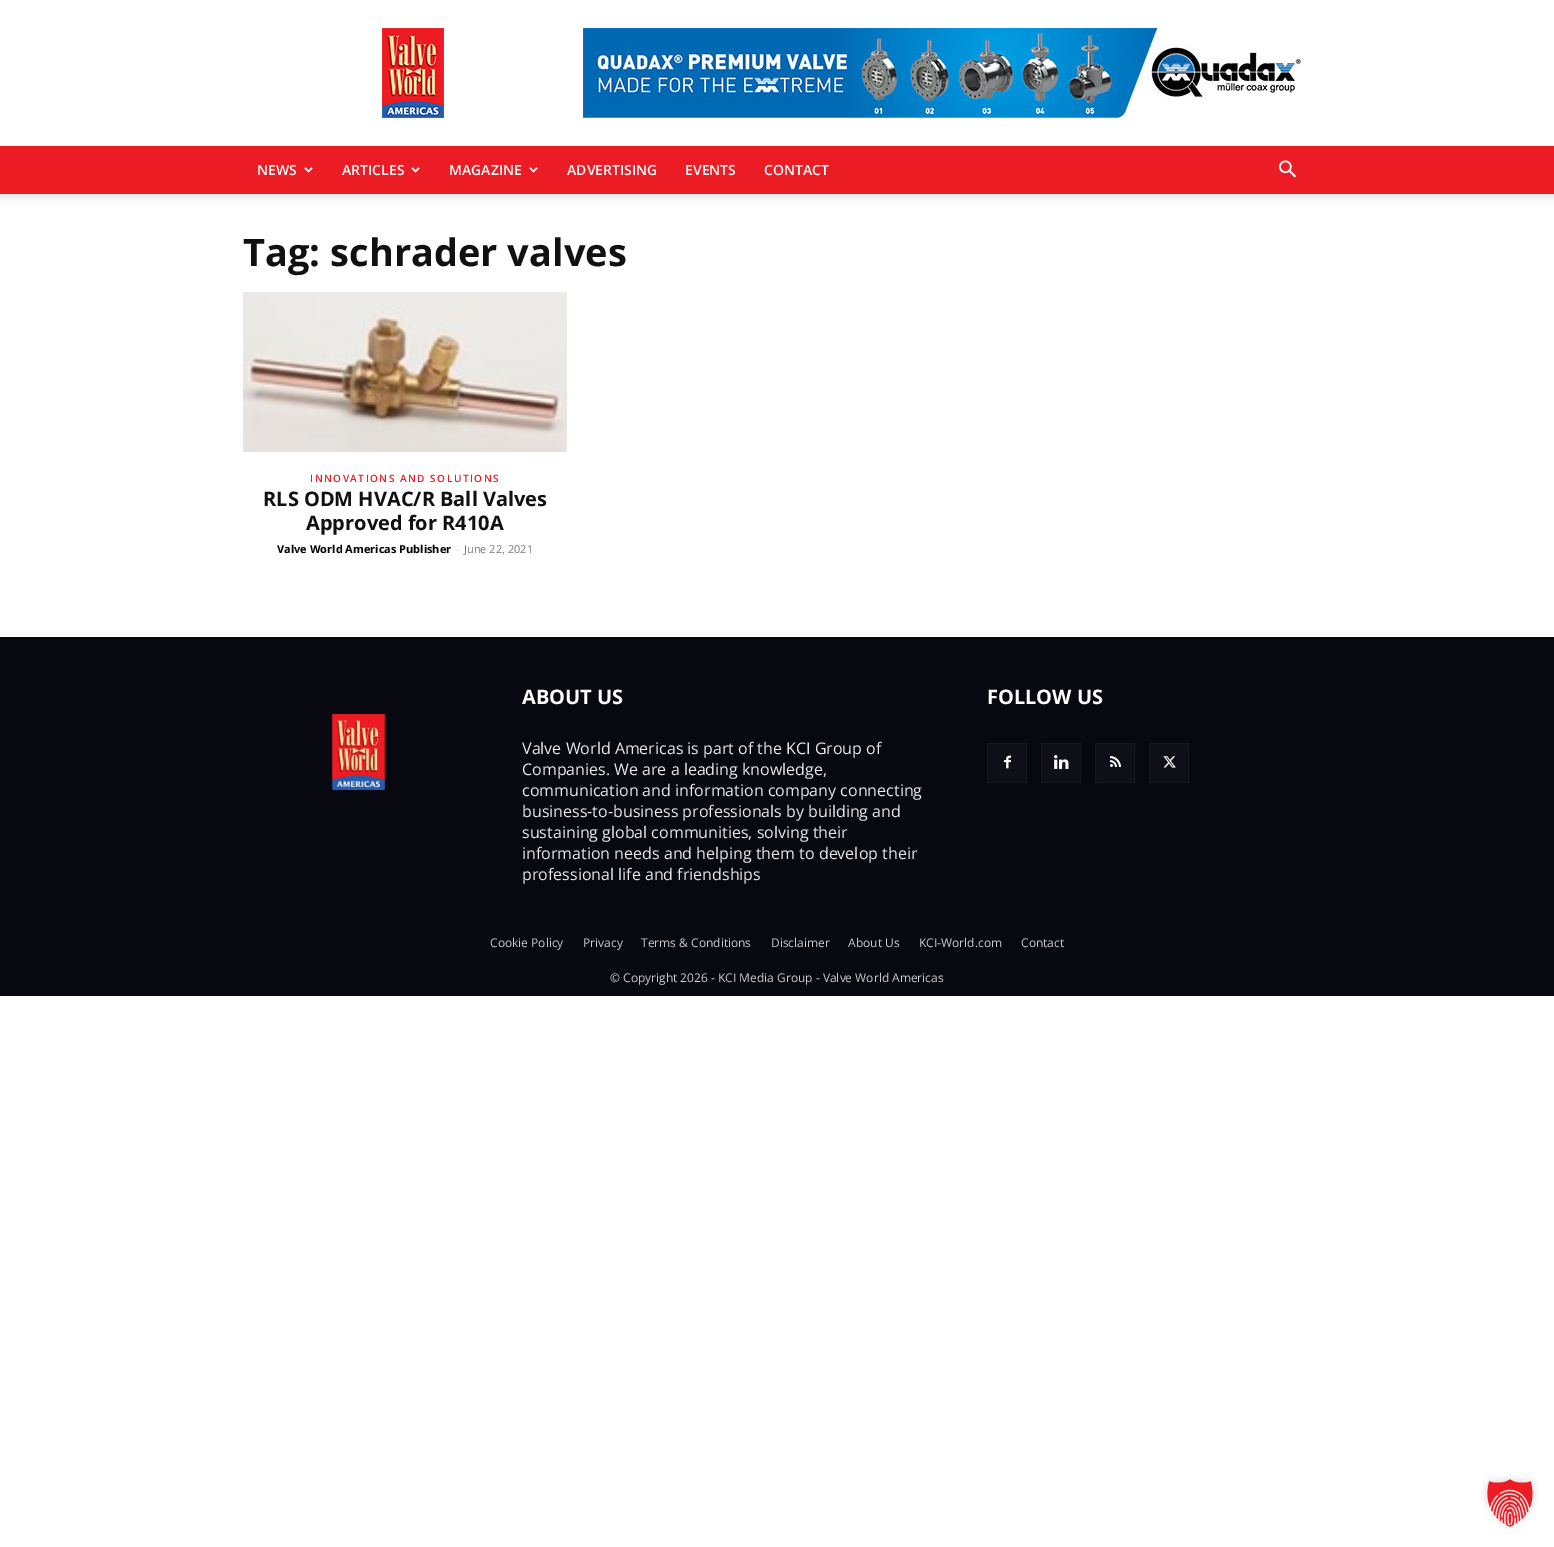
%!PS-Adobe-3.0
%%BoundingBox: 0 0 1554 1547
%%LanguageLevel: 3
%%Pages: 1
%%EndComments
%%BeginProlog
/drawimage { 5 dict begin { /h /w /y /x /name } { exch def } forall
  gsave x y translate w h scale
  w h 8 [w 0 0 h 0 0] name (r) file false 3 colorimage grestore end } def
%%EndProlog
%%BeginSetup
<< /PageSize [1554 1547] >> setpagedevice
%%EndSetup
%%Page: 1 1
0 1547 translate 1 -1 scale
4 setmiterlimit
1 setgray
0 0 1554 1547 rectfill
(images/1.raw) 382 28 62 90 drawimage
(images/2.raw) 583 28 720 90 drawimage
0.922 0.11 0.141 setrgbcolor
0 146 1554 48 rectfill
(images/3.raw) 304 167 9 6 drawimage
(images/3.raw) 411 167 9 6 drawimage
(images/3.raw) 529 167 9 6 drawimage
(images/4.raw) 1279 160 17 18 drawimage
(images/5.raw) 0 194 1554 9 drawimage
(images/6.raw) 243 292 324 160 drawimage
0.031 0.031 0.063 setrgbcolor
0 637 1554 359 rectfill
0.059 0.059 0.09 setrgbcolor
988 744 38 38 rectfill
(images/7.raw) 1004 755 7 14 drawimage
0.086 0.086 0.118 setrgbcolor
987.5 743.5 39 39 rectstroke
0.059 0.059 0.09 setrgbcolor
1042 744 38 38 rectfill
(images/8.raw) 1054 755 15 14 drawimage
0.086 0.086 0.118 setrgbcolor
1041.5 743.5 39 39 rectstroke
0.059 0.059 0.09 setrgbcolor
1096 744 38 38 rectfill
(images/9.raw) 1110 756 11 11 drawimage
0.086 0.086 0.118 setrgbcolor
1095.5 743.5 39 39 rectstroke
0.059 0.059 0.09 setrgbcolor
1150 744 38 38 rectfill
(images/10.raw) 1163 756 13 12 drawimage
0.086 0.086 0.118 setrgbcolor
1149.5 743.5 39 39 rectstroke
(images/11.raw) 331 714 55 76 drawimage
(images/12.raw) 1482 1475 56 54 drawimage
/OpenSans-SemiBold [14 0 0 -14 0 0] selectfont
1 setgray
257 175 moveto (NEWS) show
342 175 moveto (ARTICLES) show
449 175 moveto (MAGAZINE) show
567 175 moveto (ADVERTISING) show
685 175 moveto (EVENTS) show
764 175 moveto (CONTACT) show
/OpenSans-Bold [38 0 0 -38 0 0] selectfont
0.067 setgray
243 266 moveto (Tag: schrader valves) show
/OpenSans-SemiBold [10 0 0 -10 0 0] selectfont
0.922 0.11 0.141 setrgbcolor
310 482 moveto 1.5 0 (INNOVATIONS AND SOLUTIONS) ashow
/OpenSans-Bold [20 0 0 -20 0 0] selectfont
0.067 setgray
263 506 moveto (RLS ODM HVAC/R Ball Valves) show
306 530 moveto (Approved for R410A) show
/OpenSans-Bold [11 0 0 -11 0 0] selectfont
0 setgray
277 553 moveto (Valve World Americas Publisher) show
/OpenSans-Regular [11 0 0 -11 0 0] selectfont
0.8 setgray
456 553 moveto (-) show
0.463 setgray
464 553 moveto (June 22, 2021) show
/OpenSans-Bold [20 0 0 -20 0 0] selectfont
1 setgray
522 704 moveto (ABOUT US) show
/OpenSans-Regular [16 0 0 -16 0 0] selectfont
0.918 setgray
522 754 moveto (Valve World Americas is part of the KCI Group of) show
522 775 moveto (Companies. We are a leading knowledge,) show
522 796 moveto (communication and information company connecting) show
522 817 moveto (business-to-business professionals by building and) show
522 838 moveto (sustaining global communities, solving their) show
522 859 moveto (information needs and helping them to develop their) show
522 880 moveto (professional life and friendships) show
/OpenSans-Bold [20 0 0 -20 0 0] selectfont
1 setgray
987 704 moveto (FOLLOW US) show
/OpenSans-Regular [12 0 0 -12 0 0] selectfont
0.8 setgray
490 947 moveto (Cookie Policy) show
583 947 moveto (Privacy) show
641 947 moveto (Terms & Conditions) show
771 947 moveto (Disclaimer) show
848 947 moveto (About Us) show
919 947 moveto (KCI-World.com) show
1021 947 moveto (Contact) show
610 982 moveto (© Copyright 2026 - KCI Media Group - Valve World Americas) show
showpage
%%EOF
